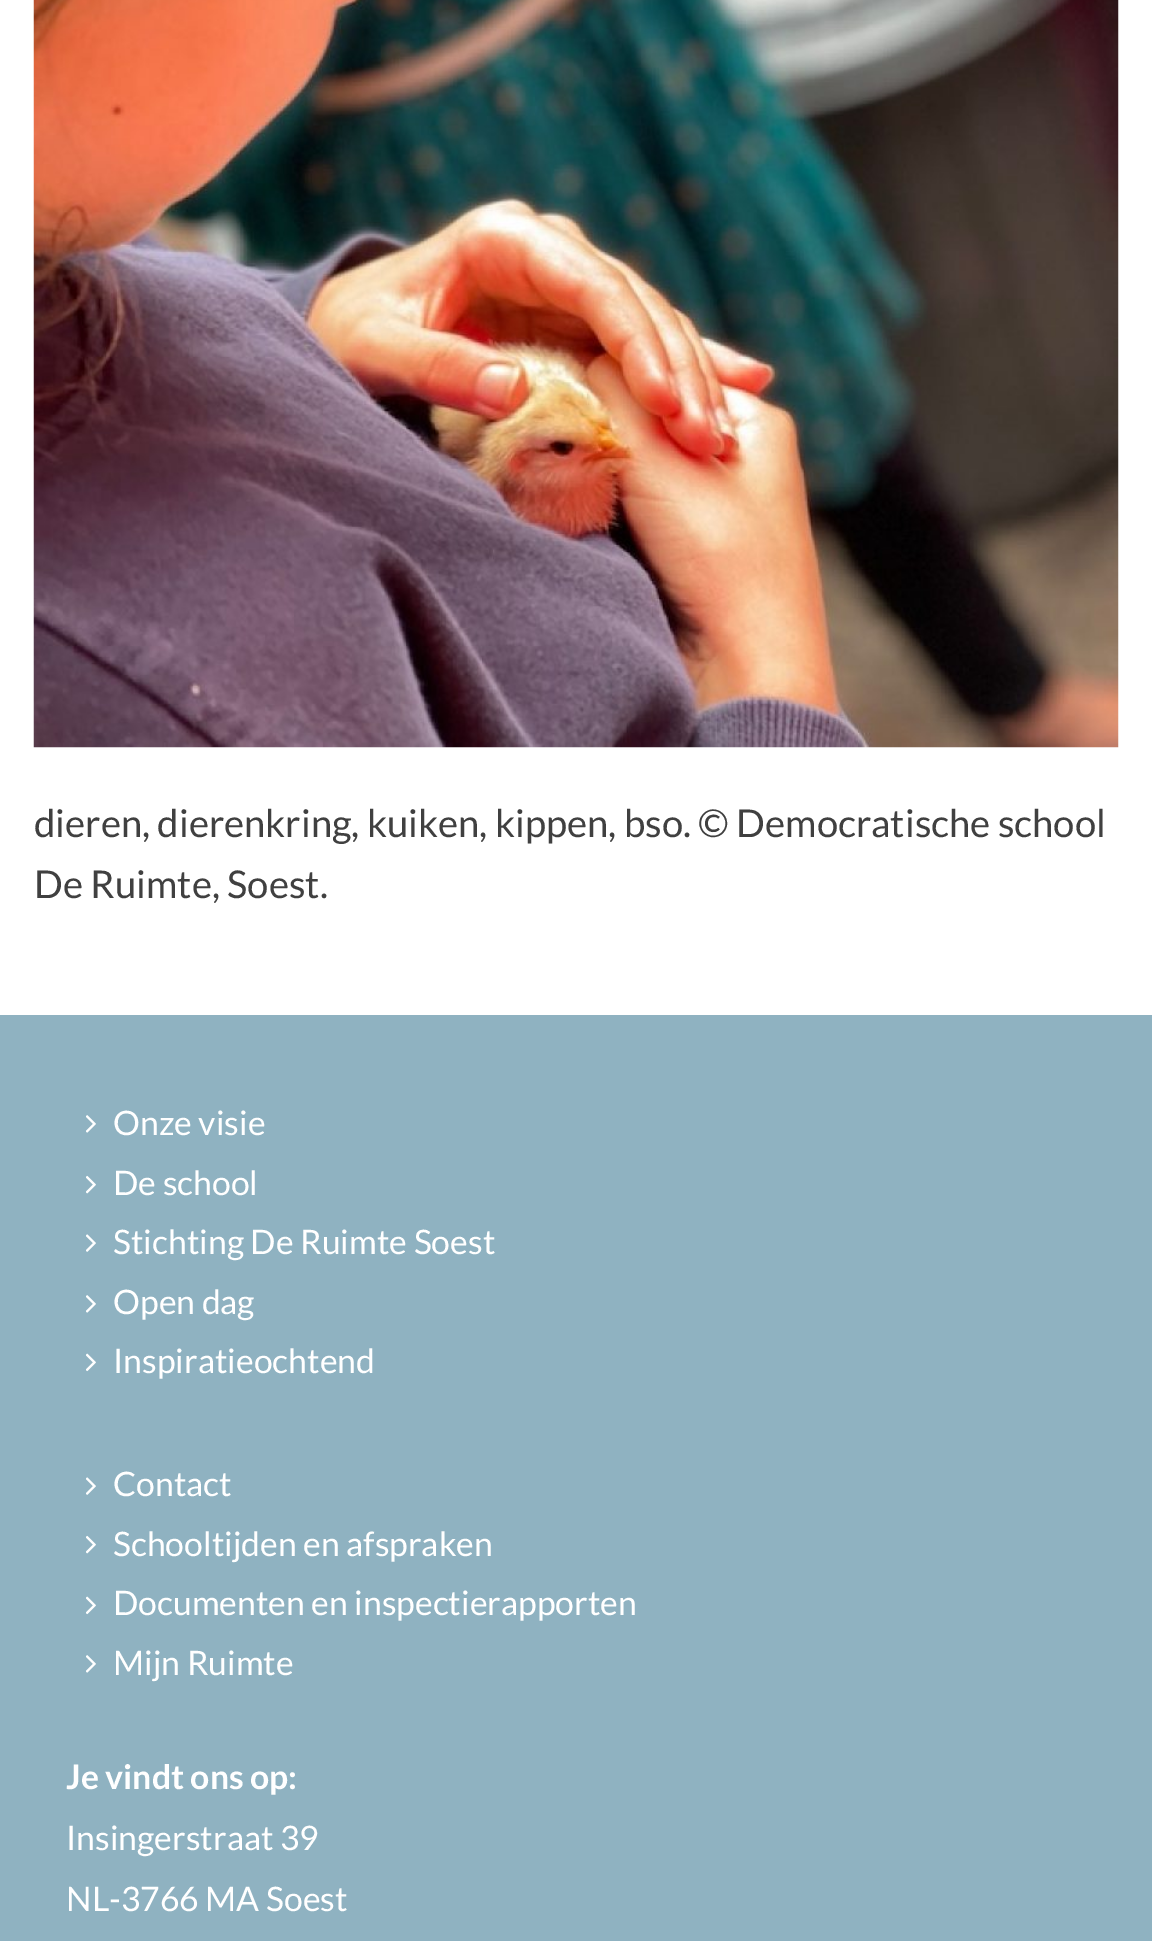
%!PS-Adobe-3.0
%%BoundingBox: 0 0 1152 1941
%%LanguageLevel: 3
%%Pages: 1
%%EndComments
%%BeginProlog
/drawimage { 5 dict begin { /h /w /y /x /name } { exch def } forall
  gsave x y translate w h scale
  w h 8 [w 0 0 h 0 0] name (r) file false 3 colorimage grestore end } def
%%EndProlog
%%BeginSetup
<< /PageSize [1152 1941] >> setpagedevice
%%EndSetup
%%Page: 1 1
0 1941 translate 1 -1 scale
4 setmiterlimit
1 setgray
0 0 1152 1941 rectfill
(images/1.raw) 33 0 1086 748 drawimage
0.561 0.698 0.757 setrgbcolor
0 1015 1152 926 rectfill
(images/2.raw) 86 1115 10 18 drawimage
(images/3.raw) 86 1175 10 19 drawimage
(images/4.raw) 86 1234 10 18 drawimage
(images/2.raw) 86 1295 10 18 drawimage
(images/5.raw) 86 1353 10 19 drawimage
(images/4.raw) 86 1477 10 18 drawimage
(images/3.raw) 86 1535 10 19 drawimage
(images/5.raw) 86 1596 10 19 drawimage
(images/2.raw) 86 1655 10 18 drawimage
/Lato-Regular [38.25 0 0 -38.25 0 0] selectfont
0.251 setgray
34 837 moveto (dieren, dierenkring, kuiken, kippen, bso. © Democratische school) show
34 898 moveto (De Ruimte, Soest.) show
/Lato-Regular [33.75 0 0 -33.75 0 0] selectfont
1 setgray
113 1135 moveto (Onze visie) show
113 1195 moveto (De school) show
113 1254 moveto (Stichting De Ruimte Soest) show
113 1314 moveto (Open dag) show
113 1373 moveto (Inspiratieochtend) show
113 1496 moveto (Contact) show
113 1556 moveto (Schooltijden en afspraken) show
113 1615 moveto (Documenten en inspectierapporten) show
113 1675 moveto (Mijn Ruimte) show
/Lato-Bold [33.75 0 0 -33.75 0 0] selectfont
66 1789 moveto (Je vindt ons op:) show
/Lato-Regular [33.75 0 0 -33.75 0 0] selectfont
66 1850 moveto (Insingerstraat 39) show
66 1911 moveto (NL-3766 MA Soest) show
showpage
%%EOF
